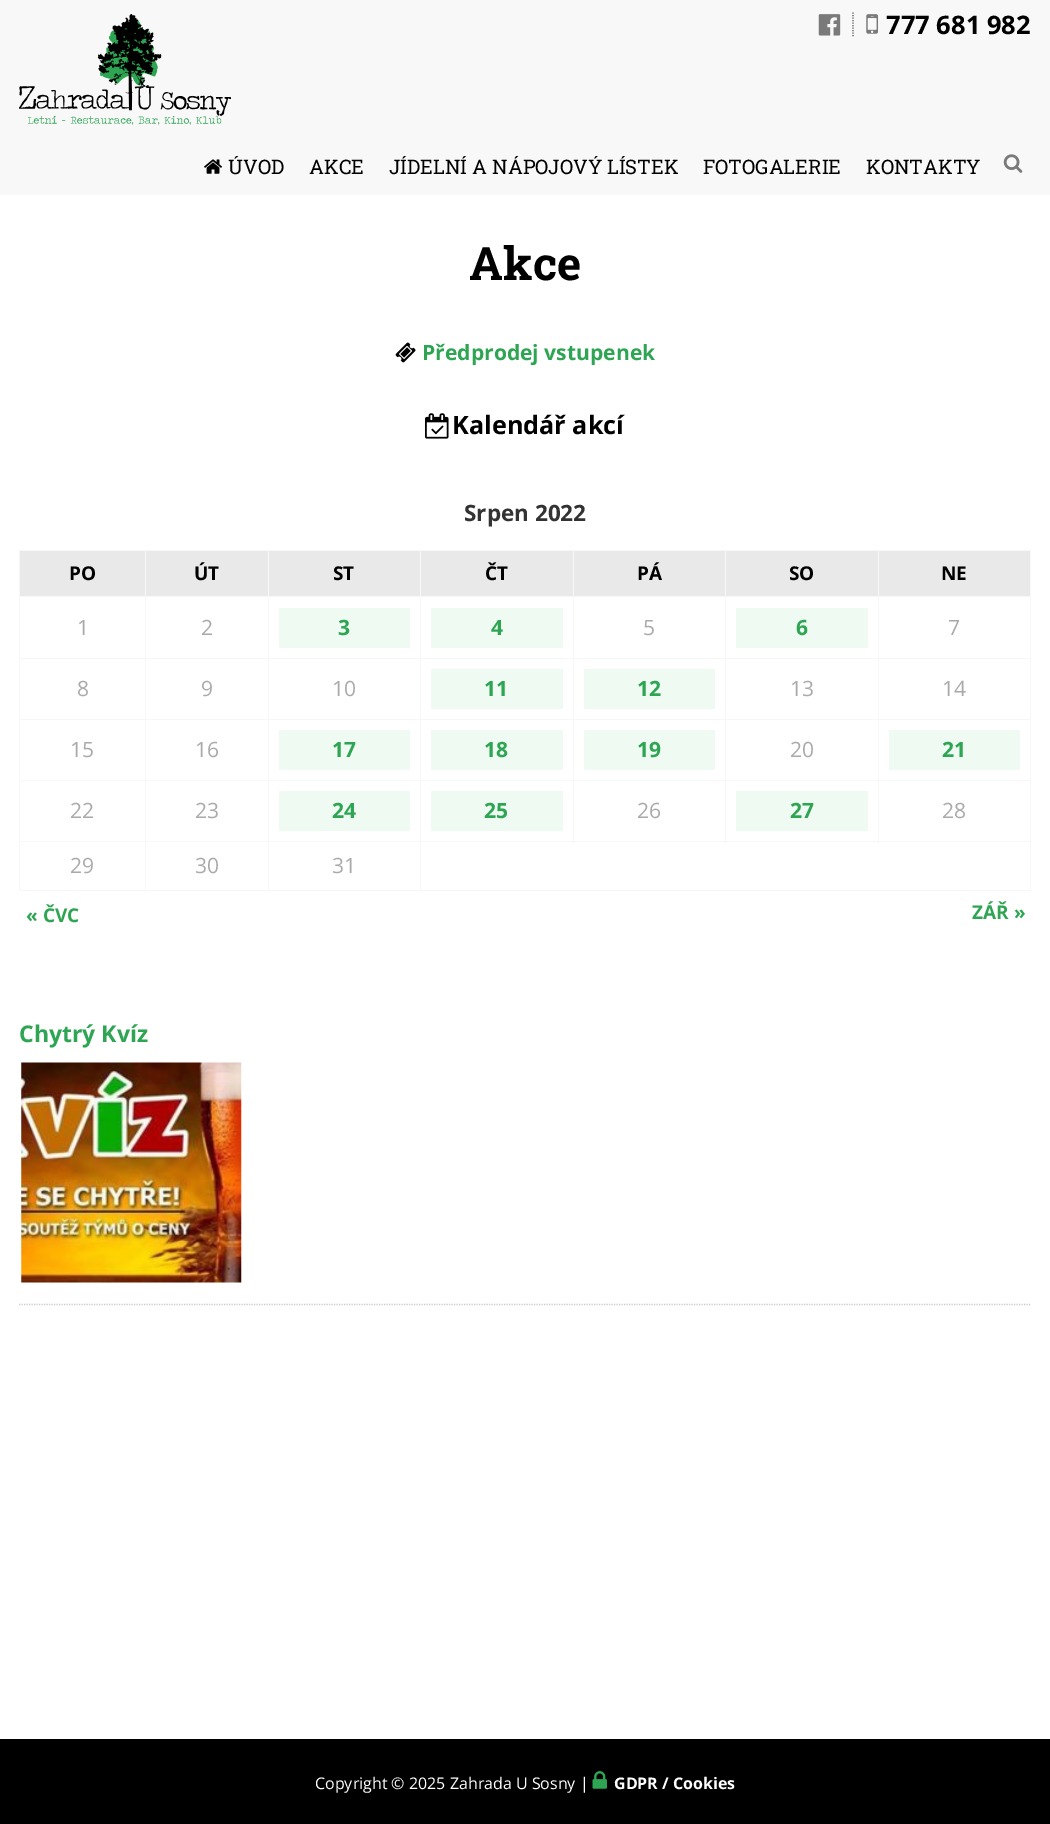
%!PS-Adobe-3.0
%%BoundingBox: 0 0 1050 1824
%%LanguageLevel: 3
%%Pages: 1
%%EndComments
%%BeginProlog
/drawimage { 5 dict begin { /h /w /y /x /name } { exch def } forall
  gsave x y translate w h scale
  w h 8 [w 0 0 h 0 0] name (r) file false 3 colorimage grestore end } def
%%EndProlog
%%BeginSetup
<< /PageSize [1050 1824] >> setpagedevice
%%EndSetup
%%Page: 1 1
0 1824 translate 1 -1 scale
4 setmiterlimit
1 setgray
0 0 1050 1824 rectfill
0.973 0.973 0.976 setrgbcolor
0 0 1050 195 rectfill
(images/1.raw) 19 14 212 111 drawimage
0.4 setgray
1.2 setlinewidth
[1.25 1.25] 0 setdash
newpath 853 12.5 moveto 853 37.5 lineto stroke
(images/2.raw) 818 14 23 22 drawimage
(images/3.raw) 866 14 13 20 drawimage
(images/4.raw) 204 159 18 15 drawimage
(images/5.raw) 1003 154 20 19 drawimage
(images/6.raw) 395 342 21 21 drawimage
(images/7.raw) 425 413 24 26 drawimage
0.914 setgray
20 551 125 45 rectfill
0.969 setgray
878 550 153 1 rectfill
878 596 153 1 rectfill
878 658 153 1 rectfill
878 719 153 1 rectfill
878 780 153 1 rectfill
420 841 611 1 rectfill
878 780 1 63 rectfill
725 780 154 1 rectfill
878 719 1 62 rectfill
725 719 154 1 rectfill
878 658 1 62 rectfill
725 658 154 1 rectfill
878 596 1 63 rectfill
725 596 154 1 rectfill
878 550 1 48 rectfill
725 550 154 1 rectfill
725 780 1 63 rectfill
573 780 153 1 rectfill
725 719 1 62 rectfill
573 719 153 1 rectfill
725 658 1 62 rectfill
573 658 153 1 rectfill
725 596 1 63 rectfill
573 596 153 1 rectfill
725 550 1 48 rectfill
573 550 153 1 rectfill
573 780 1 63 rectfill
420 780 154 1 rectfill
573 719 1 62 rectfill
420 719 154 1 rectfill
573 658 1 62 rectfill
420 658 154 1 rectfill
573 596 1 63 rectfill
420 596 154 1 rectfill
573 550 1 48 rectfill
420 550 154 1 rectfill
1030 841 1 50 rectfill
420 890 611 1 rectfill
420 841 1 50 rectfill
268 841 153 1 rectfill
420 780 1 63 rectfill
268 780 153 1 rectfill
420 719 1 62 rectfill
268 719 153 1 rectfill
420 658 1 62 rectfill
268 658 153 1 rectfill
420 596 1 63 rectfill
268 596 153 1 rectfill
420 550 1 48 rectfill
268 550 153 1 rectfill
268 890 153 1 rectfill
268 841 1 50 rectfill
145 841 124 1 rectfill
268 780 1 63 rectfill
145 780 124 1 rectfill
268 719 1 62 rectfill
145 719 124 1 rectfill
268 658 1 62 rectfill
145 658 124 1 rectfill
268 596 1 63 rectfill
145 596 124 1 rectfill
268 550 1 48 rectfill
145 550 124 1 rectfill
145 890 124 1 rectfill
145 841 1 50 rectfill
19 841 127 1 rectfill
145 780 1 63 rectfill
19 780 127 1 rectfill
145 719 1 62 rectfill
19 719 127 1 rectfill
145 658 1 62 rectfill
19 658 127 1 rectfill
145 596 1 63 rectfill
19 596 127 1 rectfill
145 550 1 48 rectfill
19 550 127 1 rectfill
19 890 127 1 rectfill
19 841 1 50 rectfill
19 780 1 63 rectfill
19 719 1 62 rectfill
19 658 1 62 rectfill
19 596 1 63 rectfill
19 550 1 48 rectfill
0.914 setgray
146 551 122 45 rectfill
269 551 151 45 rectfill
421 551 152 45 rectfill
574 551 151 45 rectfill
726 551 152 45 rectfill
879 551 151 45 rectfill
0.969 setgray
1030 780 1 63 rectfill
1030 719 1 62 rectfill
1030 658 1 62 rectfill
1030 596 1 63 rectfill
1030 550 1 48 rectfill
0.933 0.98 0.949 setrgbcolor
279 608 131 40 rectfill
431 608 132 40 rectfill
736 608 132 40 rectfill
431 669 132 40 rectfill
584 669 131 40 rectfill
279 730 131 40 rectfill
431 730 132 40 rectfill
584 730 131 40 rectfill
889 730 131 40 rectfill
279 791 131 40 rectfill
431 791 132 40 rectfill
736 791 132 40 rectfill
0.8 setgray
newpath 19 1304.5 moveto 1031 1304.5 lineto stroke
(images/8.raw) 21 1062 221 221 drawimage
0 setgray
0 1739 1050 85 rectfill
(images/9.raw) 592 1771 15 18 drawimage
/OpenSans-Bold [25.5 0 0 -25.5 0 0] selectfont
886 34 moveto (777 681 982) show
/RobotoSlab-Regular [20 0 0 -20 0 0] selectfont
228 174 moveto (ÚVOD) show
309 174 moveto (AKCE) show
389 174 moveto (JÍDELNÍ A NÁPOJOVÝ LÍSTEK) show
703 174 moveto (FOTOGALERIE) show
866 174 moveto (KONTAKTY) show
/RobotoSlab-Bold [46 0 0 -46 0 0] selectfont
469 280 moveto (Akce) show
/OpenSans-Bold [21.1 0 0 -21.1 0 0] selectfont
0.176 0.647 0.325 setrgbcolor
422 360 moveto (Předprodej vstupenek) show
/OpenSans-Bold [25.25 0 0 -25.25 0 0] selectfont
0 setgray
452 434 moveto (Kalendář akcí) show
/OpenSans-Bold [22.5 0 0 -22.5 0 0] selectfont
0.2 setgray
464 521 moveto (Srpen 2022) show
/OpenSans-Bold [19 0 0 -19 0 0] selectfont
0 setgray
69 580 moveto (PO) show
194 580 moveto (ÚT) show
333 580 moveto (ST) show
485 580 moveto (ČT) show
637 580 moveto (PÁ) show
789 580 moveto (SO) show
941 580 moveto (NE) show
/OpenSans-Regular [21.1 0 0 -21.1 0 0] selectfont
0.667 setgray
77 635 moveto (1) show
201 635 moveto (2) show
/OpenSans-Bold [21.1 0 0 -21.1 0 0] selectfont
0.176 0.647 0.325 setrgbcolor
338 635 moveto (3) show
491 635 moveto (4) show
/OpenSans-Regular [21.1 0 0 -21.1 0 0] selectfont
0.667 setgray
643 635 moveto (5) show
/OpenSans-Bold [21.1 0 0 -21.1 0 0] selectfont
0.176 0.647 0.325 setrgbcolor
796 635 moveto (6) show
/OpenSans-Regular [21.1 0 0 -21.1 0 0] selectfont
0.667 setgray
948 635 moveto (7) show
77 696 moveto (8) show
201 696 moveto (9) show
332 696 moveto (10) show
/OpenSans-Bold [21.1 0 0 -21.1 0 0] selectfont
0.176 0.647 0.325 setrgbcolor
484 696 moveto (11) show
637 696 moveto (12) show
/OpenSans-Regular [21.1 0 0 -21.1 0 0] selectfont
0.667 setgray
790 696 moveto (13) show
942 696 moveto (14) show
70 757 moveto (15) show
195 757 moveto (16) show
/OpenSans-Bold [21.1 0 0 -21.1 0 0] selectfont
0.176 0.647 0.325 setrgbcolor
332 757 moveto (17) show
484 757 moveto (18) show
637 757 moveto (19) show
/OpenSans-Regular [21.1 0 0 -21.1 0 0] selectfont
0.667 setgray
790 757 moveto (20) show
/OpenSans-Bold [21.1 0 0 -21.1 0 0] selectfont
0.176 0.647 0.325 setrgbcolor
942 757 moveto (21) show
/OpenSans-Regular [21.1 0 0 -21.1 0 0] selectfont
0.667 setgray
70 818 moveto (22) show
195 818 moveto (23) show
/OpenSans-Bold [21.1 0 0 -21.1 0 0] selectfont
0.176 0.647 0.325 setrgbcolor
332 818 moveto (24) show
484 818 moveto (25) show
/OpenSans-Regular [21.1 0 0 -21.1 0 0] selectfont
0.667 setgray
637 818 moveto (26) show
/OpenSans-Bold [21.1 0 0 -21.1 0 0] selectfont
0.176 0.647 0.325 setrgbcolor
790 818 moveto (27) show
/OpenSans-Regular [21.1 0 0 -21.1 0 0] selectfont
0.667 setgray
942 818 moveto (28) show
70 873 moveto (29) show
195 873 moveto (30) show
332 873 moveto (31) show
/OpenSans-Bold [19 0 0 -19 0 0] selectfont
0.176 0.647 0.325 setrgbcolor
26 922 moveto (« ČVC) show
972 919 moveto (ZÁŘ ») show
/OpenSans-Bold [23 0 0 -23 0 0] selectfont
19 1042 moveto (Chytrý Kvíz) show
/OpenSans-Regular [16 0 0 -16 0 0] selectfont
1 setgray
315 1789 moveto (Copyright © 2025 Zahrada U Sosny |) show
/OpenSans-Bold [16 0 0 -16 0 0] selectfont
614 1789 moveto (GDPR / Cookies) show
showpage
%%EOF
